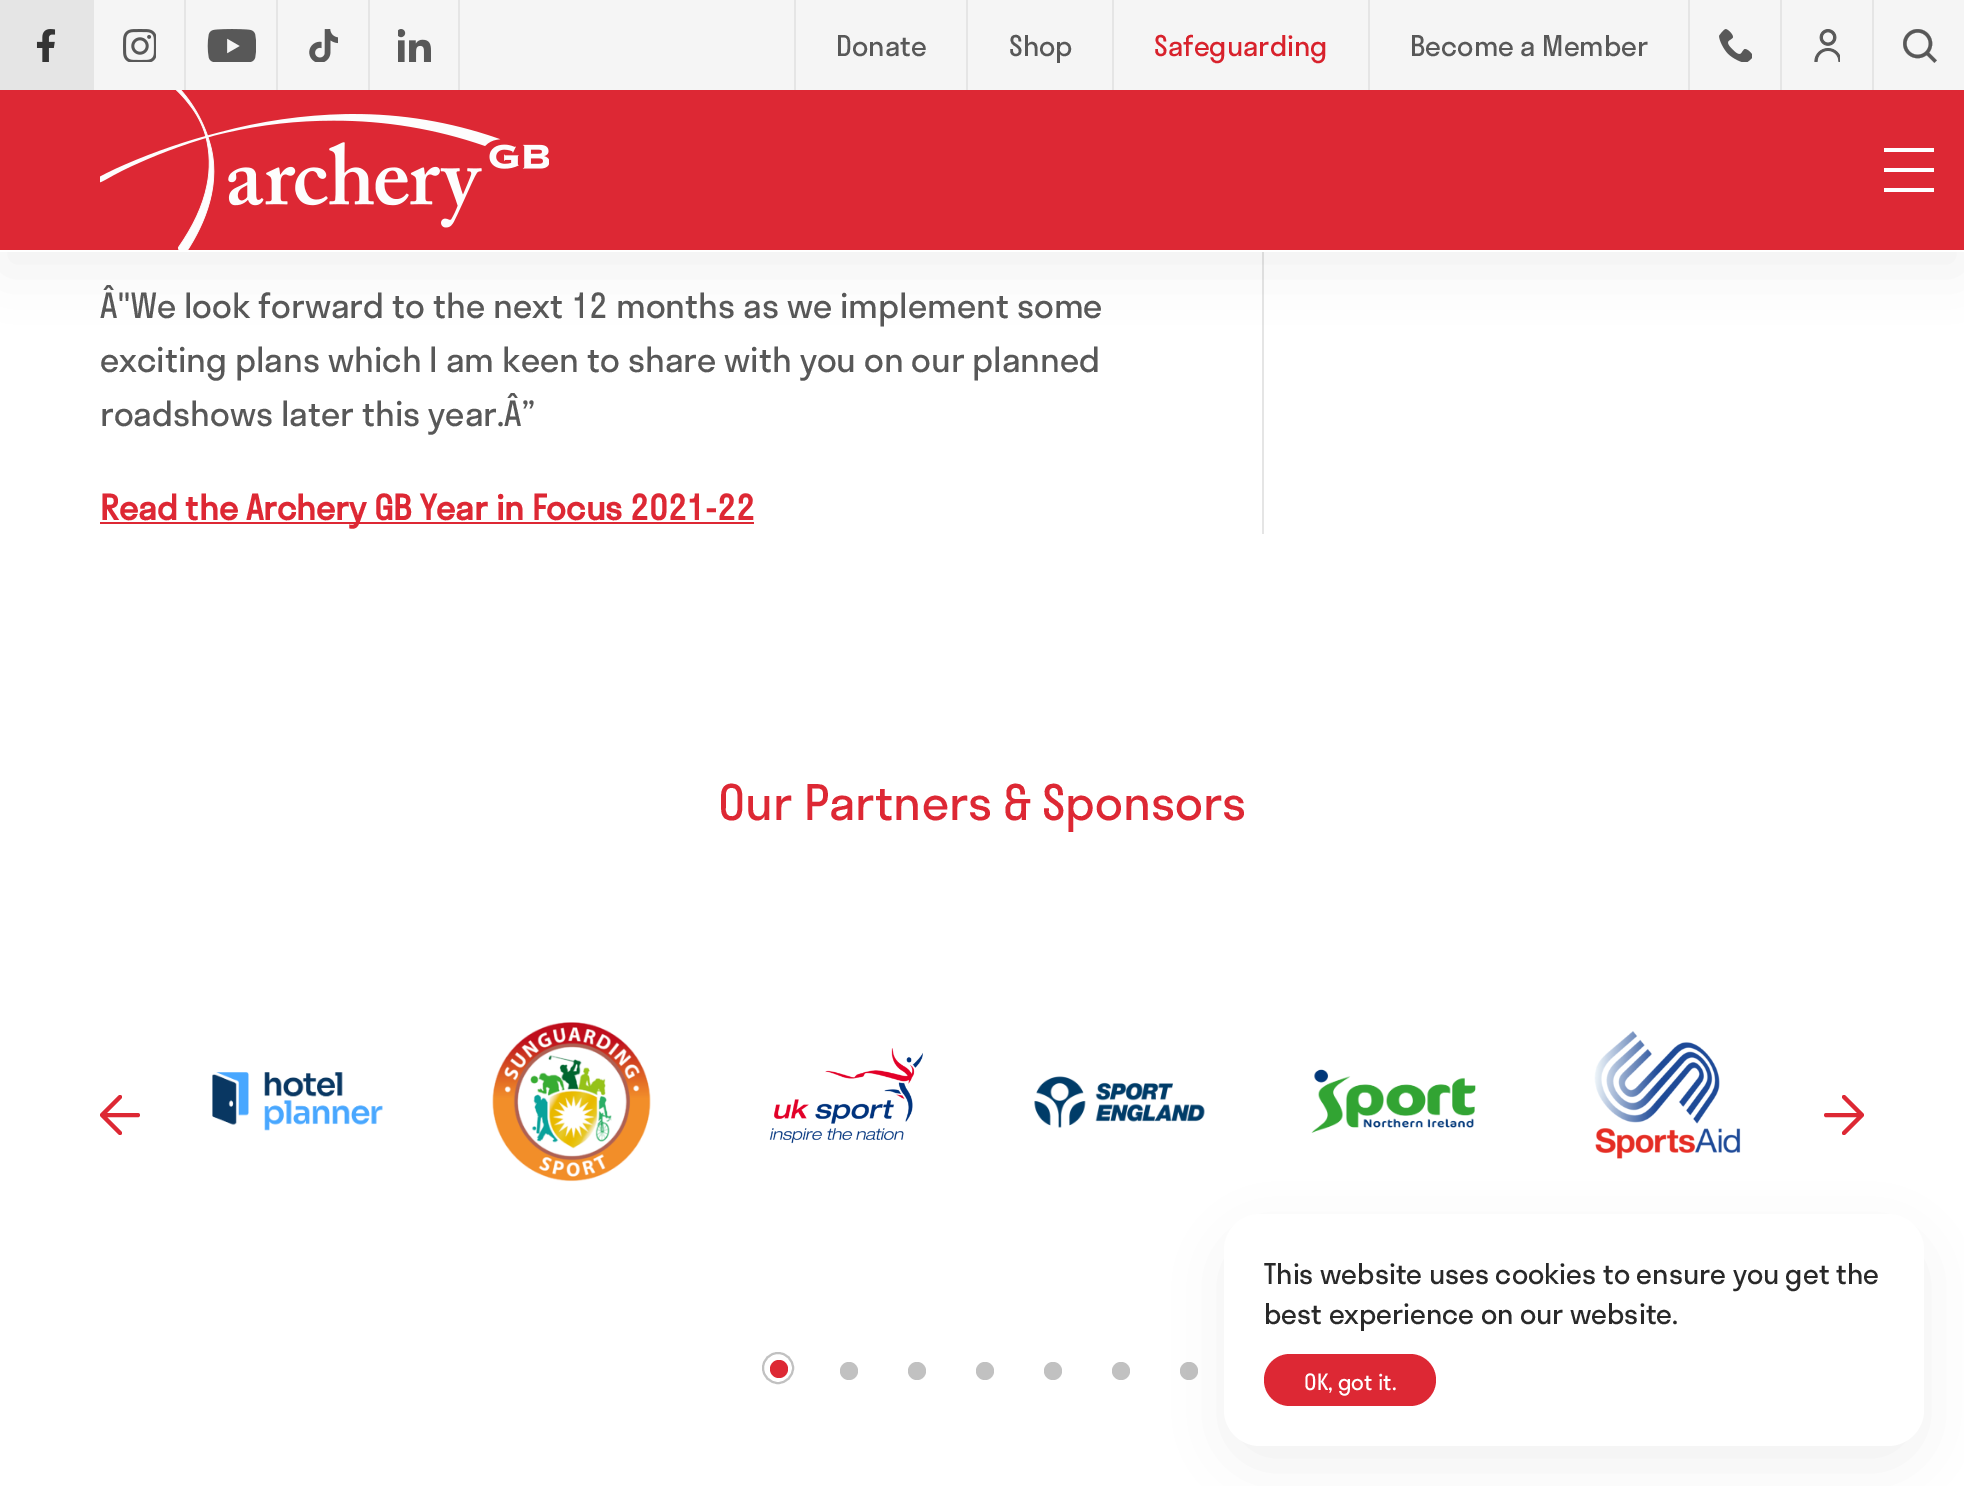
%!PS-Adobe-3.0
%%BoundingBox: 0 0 1964 1486
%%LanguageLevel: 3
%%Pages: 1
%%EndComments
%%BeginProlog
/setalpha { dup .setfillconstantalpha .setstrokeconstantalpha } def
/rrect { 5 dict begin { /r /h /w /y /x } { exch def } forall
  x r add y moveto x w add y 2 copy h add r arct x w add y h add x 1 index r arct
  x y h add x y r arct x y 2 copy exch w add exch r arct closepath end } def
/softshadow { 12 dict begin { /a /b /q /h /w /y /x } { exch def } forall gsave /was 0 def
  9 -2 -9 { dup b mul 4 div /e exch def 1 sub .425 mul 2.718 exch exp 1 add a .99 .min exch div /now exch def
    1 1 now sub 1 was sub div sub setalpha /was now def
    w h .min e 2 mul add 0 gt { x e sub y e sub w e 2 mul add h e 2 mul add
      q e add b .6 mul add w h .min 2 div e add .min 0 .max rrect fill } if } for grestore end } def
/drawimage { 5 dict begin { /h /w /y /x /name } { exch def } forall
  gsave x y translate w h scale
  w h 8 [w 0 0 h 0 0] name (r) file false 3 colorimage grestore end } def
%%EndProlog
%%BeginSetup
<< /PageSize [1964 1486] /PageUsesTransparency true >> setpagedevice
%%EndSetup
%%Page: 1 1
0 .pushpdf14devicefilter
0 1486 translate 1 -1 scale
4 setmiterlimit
1 setgray
0 0 1964 1486 rectfill
0.898 setgray
1262 252 2 282 rectfill
0 setgray
0 20 1964 252 0 30 0.05 softshadow
0.867 0.157 0.204 setrgbcolor
0 90 1964 160 rectfill
1 setgray
0 250 1964 2 rectfill
0.961 setgray
94 0 1870 90 rectfill
0.898 setgray
0 0 94 90 rectfill
(images/1.raw) 36 29 20 33 drawimage
(images/2.raw) 123 29 33 33 drawimage
184 0 2 90 rectfill
(images/3.raw) 207 29 49 33 drawimage
276 0 2 90 rectfill
(images/4.raw) 309 29 29 33 drawimage
458 0 2 90 rectfill
368 0 2 90 rectfill
(images/5.raw) 398 29 33 33 drawimage
794 0 2 90 rectfill
966 0 2 90 rectfill
1112 0 2 90 rectfill
1368 0 2 90 rectfill
1688 0 2 90 rectfill
(images/6.raw) 1719 29 33 33 drawimage
1780 0 2 90 rectfill
(images/7.raw) 1814 29 26 33 drawimage
1872 0 2 90 rectfill
(images/8.raw) 1903 29 34 34 drawimage
(images/9.raw) 100 90 449 160 drawimage
1 setgray
1884 148 50 4 rectfill
1884 168 50 4 rectfill
1884 188 50 4 rectfill
0.867 0.157 0.204 setrgbcolor
100 522 654 2 rectfill
4 setlinewidth
1 setlinecap
1 setlinejoin
newpath 138 1115 moveto 102 1115 lineto 120 1097 moveto 102 1115 lineto 120 1133 lineto stroke
(images/10.raw) 212 1072 171 59 drawimage
(images/11.raw) 492 1022 159 160 drawimage
(images/12.raw) 769 1048 154 96 drawimage
(images/13.raw) 1034 1076 171 52 drawimage
(images/14.raw) 1311 1069 165 64 drawimage
(images/15.raw) 1594 1031 147 128 drawimage
newpath 1826 1115 moveto 1862 1115 lineto 1844 1097 moveto 1862 1115 lineto 1844 1133 lineto stroke
0.757 setgray
2 setlinewidth
0 setlinecap
0 setlinejoin
newpath 778 1368 15 0 360 arc closepath stroke
0.867 0.157 0.204 setrgbcolor
newpath 779 1369 9 0 360 arc closepath fill
0.757 setgray
newpath 849 1371 9 0 360 arc closepath fill
newpath 917 1371 9 0 360 arc closepath fill
newpath 985 1371 9 0 360 arc closepath fill
newpath 1053 1371 9 0 360 arc closepath fill
newpath 1121 1371 9 0 360 arc closepath fill
newpath 1189 1371 9 0 360 arc closepath fill
0 setgray
1224 1234 700 232 36 30 0.05 softshadow
1 setgray
1224 1214 700 232 36 rrect fill
0.867 0.157 0.204 setrgbcolor
1264 1354 172 52 26 rrect fill
/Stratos-Regular [28 0 0 -28 0 0] selectfont
0.345 setgray
836 56 moveto (Donate) show
1009 56 moveto (Shop) show
0.847 0.133 0.173 setrgbcolor
1154 56 moveto (Safeguarding) show
0.345 setgray
1410 56 moveto (Become a Member) show
/Stratos-Regular [34 0 0 -34 0 0] selectfont
100 318 moveto (Â"We look forward to the next 12 months as we implement some) show
100 372 moveto (exciting plans which I am keen to share with you on our planned) show
100 426 moveto (roadshows later this year.Â”) show
/Stratos-Bold [34 0 0 -34 0 0] selectfont
0.867 0.157 0.204 setrgbcolor
100 520 moveto (Read the Archery GB Year in Focus 2021-22) show
/Stratos-Regular [48 0 0 -48 0 0] selectfont
718 820 moveto (Our Partners & Sponsors) show
/Stratos-Regular [28 0 0 -28 0 0] selectfont
0.161 setgray
1264 1284 moveto (This website uses cookies to ensure you get the) show
1264 1324 moveto (best experience on our website.) show
/Stratos-Regular [22 0 0 -22 0 0] selectfont
1 setgray
1304 1390 moveto (OK, got it.) show
.poppdf14devicefilter showpage
%%EOF
